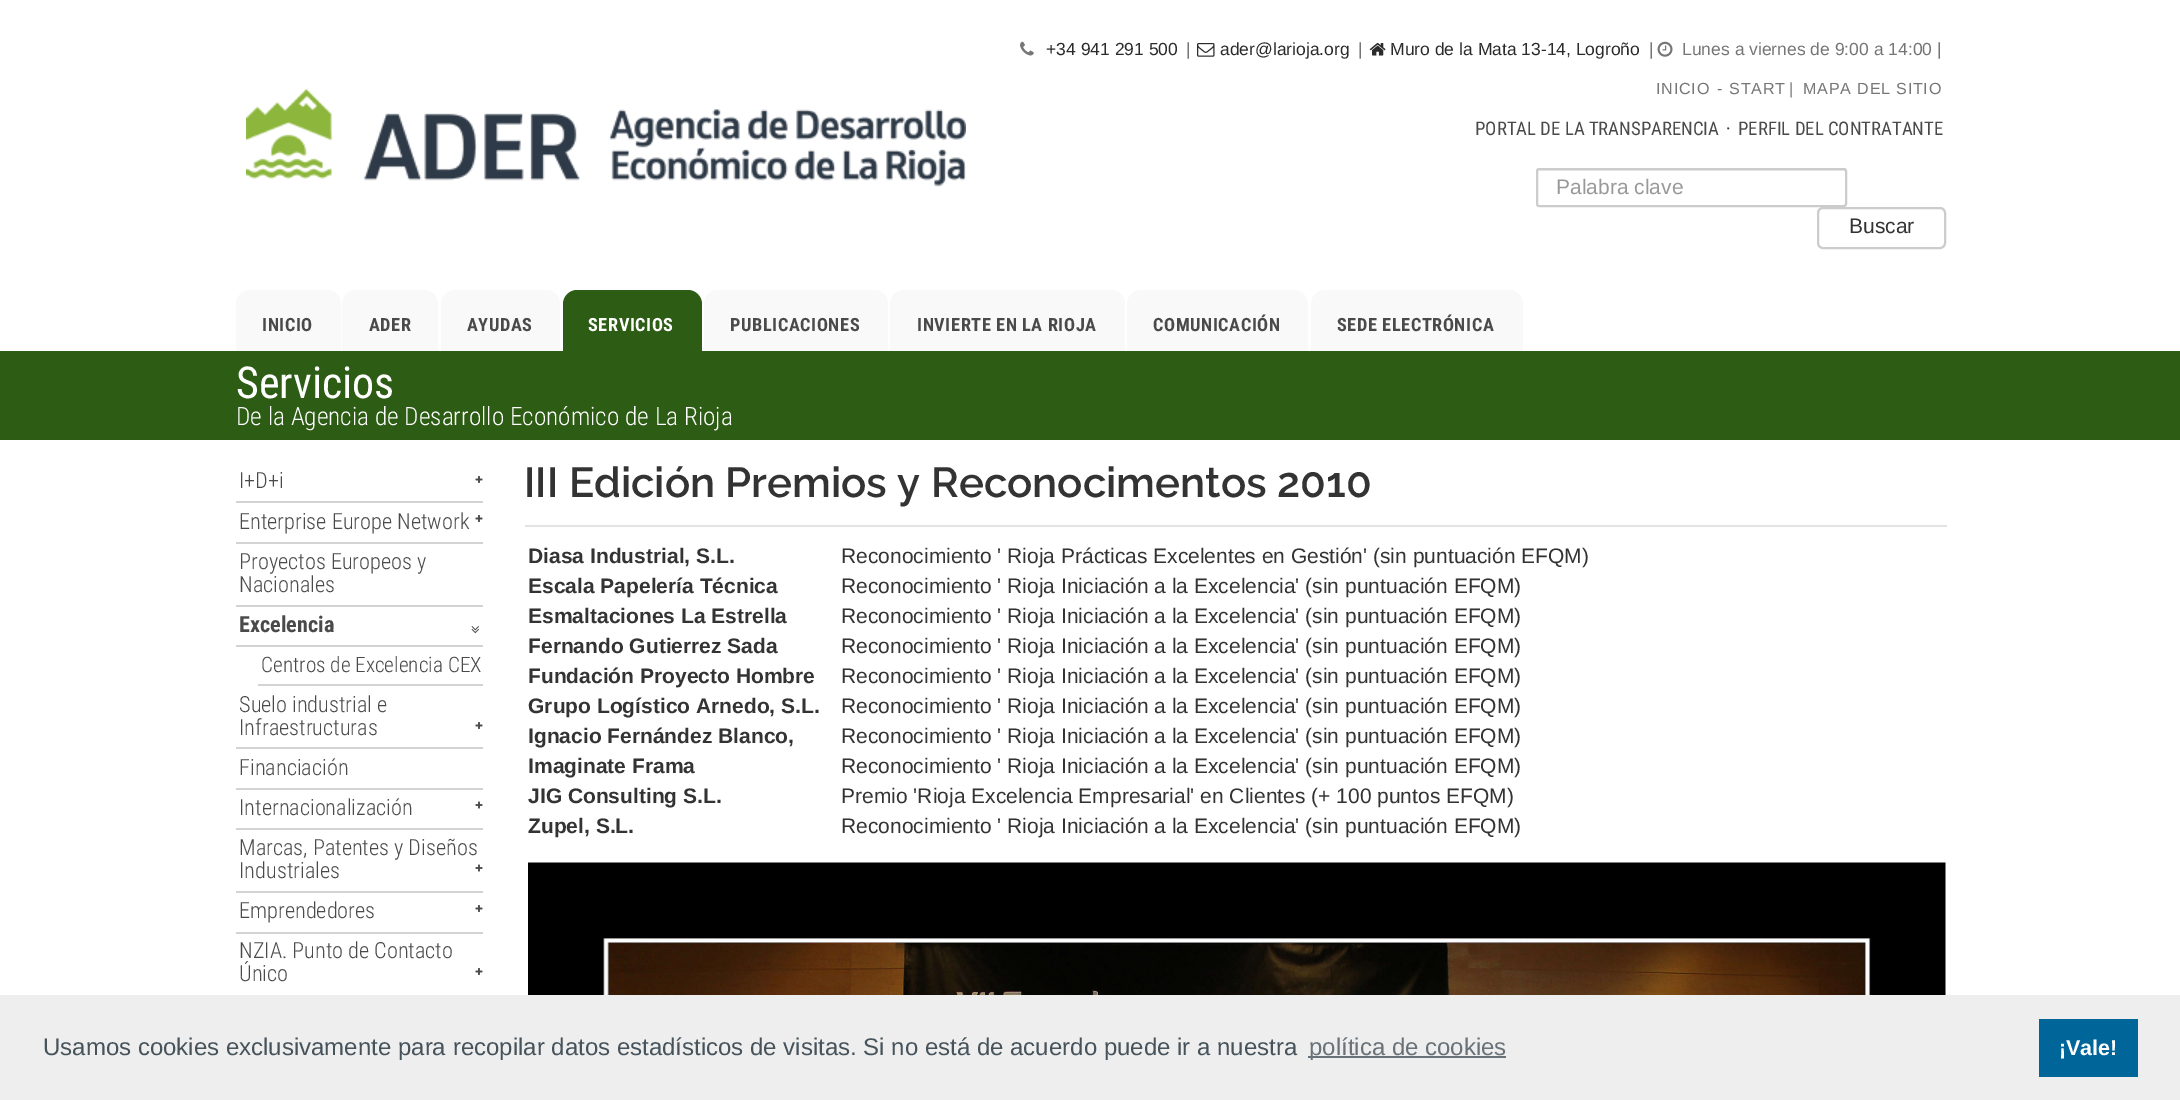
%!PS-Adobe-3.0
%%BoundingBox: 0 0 2180 1100
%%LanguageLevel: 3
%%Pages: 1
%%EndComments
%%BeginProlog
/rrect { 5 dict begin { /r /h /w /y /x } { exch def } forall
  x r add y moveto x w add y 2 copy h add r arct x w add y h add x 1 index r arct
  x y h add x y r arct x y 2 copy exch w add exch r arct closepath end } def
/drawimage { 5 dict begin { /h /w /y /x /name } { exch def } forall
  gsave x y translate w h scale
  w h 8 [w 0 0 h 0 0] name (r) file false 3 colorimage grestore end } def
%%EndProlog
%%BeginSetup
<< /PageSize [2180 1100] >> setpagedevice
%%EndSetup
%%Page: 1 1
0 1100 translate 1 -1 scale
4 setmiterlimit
1 setgray
0 0 2180 1100 rectfill
(images/1.raw) 246 88 720 99 drawimage
(images/2.raw) 1020 41 14 15 drawimage
(images/3.raw) 1197 43 18 14 drawimage
(images/4.raw) 1369 43 17 13 drawimage
(images/5.raw) 1657 41 16 16 drawimage
0.925 setgray
newpath 1539 171 moveto 1844 171 lineto 1845 172 lineto 1845 171 1845 170 1844 170 curveto 1540 170 lineto 1538 171 lineto 1538 172 lineto closepath fill
0.8 setgray
2 setlinewidth
1537 169 309 37 2 rrect stroke
1818 208 127 40 5 rrect stroke
0.976 setgray
newpath 250 290 moveto 327 290 lineto 334.5 290 341 296.5 341 304 curveto 341 351 lineto 236 351 lineto 236 304 lineto 236 296.5 242.5 290 250 290 curveto closepath fill
newpath 356 290 moveto 424 290 lineto 431.5 290 438 296.5 438 304 curveto 438 351 lineto 342 351 lineto 342 304 lineto 342 296.5 348.5 290 356 290 curveto closepath fill
newpath 455 290 moveto 546 290 lineto 553.5 290 560 296.5 560 304 curveto 560 351 lineto 441 351 lineto 441 304 lineto 441 296.5 447.5 290 455 290 curveto closepath fill
0.176 0.361 0.078 setrgbcolor
newpath 577 290 moveto 688 290 lineto 695.5 290 702 296.5 702 304 curveto 702 351 lineto 563 351 lineto 563 304 lineto 563 296.5 569.5 290 577 290 curveto closepath fill
0.976 setgray
newpath 718 290 moveto 874 290 lineto 881.5 290 888 296.5 888 304 curveto 888 351 lineto 704 351 lineto 704 304 lineto 704 296.5 710.5 290 718 290 curveto closepath fill
newpath 904 290 moveto 1111 290 lineto 1118.5 290 1125 296.5 1125 304 curveto 1125 351 lineto 890 351 lineto 890 304 lineto 890 296.5 896.5 290 904 290 curveto closepath fill
newpath 1141 290 moveto 1294 290 lineto 1301.5 290 1308 296.5 1308 304 curveto 1308 351 lineto 1127 351 lineto 1127 304 lineto 1127 296.5 1133.5 290 1141 290 curveto closepath fill
newpath 1325 290 moveto 1509 290 lineto 1516.5 290 1523 296.5 1523 304 curveto 1523 351 lineto 1311 351 lineto 1311 304 lineto 1311 296.5 1317.5 290 1325 290 curveto closepath fill
0.176 0.361 0.078 setrgbcolor
0 351 2180 89 rectfill
0.827 setgray
236 501 247 2 rectfill
(images/6.raw) 475 476 8 7 drawimage
236 542 247 2 rectfill
(images/6.raw) 475 515 8 7 drawimage
236 605 247 2 rectfill
236 645 247 2 rectfill
(images/7.raw) 471 626 8 8 drawimage
258 684 225 2 rectfill
236 747 247 2 rectfill
(images/6.raw) 475 722 8 7 drawimage
236 788 247 2 rectfill
236 828 247 2 rectfill
(images/8.raw) 475 801 8 8 drawimage
236 891 247 2 rectfill
(images/8.raw) 475 864 8 8 drawimage
236 932 247 2 rectfill
(images/6.raw) 475 905 8 7 drawimage
(images/6.raw) 475 968 8 7 drawimage
0.89 setgray
525 525 1422 2 rectfill
(images/9.raw) 528 862 1418 133 drawimage
0.933 setgray
0 995 2180 105 rectfill
0.408 0.447 0.471 setrgbcolor
1308 1056 198 2 rectfill
0 0.4 0.6 setrgbcolor
2039 1019 99 58 rectfill
/LiberationSans-Regular [17.5 0 0 -17.5 0 0] selectfont
0.169 setgray
1046 55 moveto (+34 941 291 500) show
0.463 setgray
1186 55 moveto (|) show
0.169 setgray
1220 55 moveto (ader@larioja.org) show
0.463 setgray
1358 55 moveto (|) show
0.169 setgray
1390 55 moveto (Muro de la Mata 13-14, Logroño) show
0.463 setgray
1649 55 moveto (|) show
1682 55 moveto (Lunes a viernes de 9:00 a 14:00 |) show
/LiberationSans-Regular [16.1 0 0 -16.1 0 0] selectfont
1656 94 moveto 0.8 0 (INICIO) ashow
1717 94 moveto 0.8 0 (-) ashow
1729 94 moveto 0.8 0 (START) ashow
1789 94 moveto 0.8 0 (|) ashow
1803 94 moveto 0.8 0 (MAPA DEL SITIO) ashow
/RobotoCondensed-Regular [18.75 0 0 -18.75 0 0] selectfont
0.29 setgray
1475 135 moveto (PORTAL DE LA TRANSPARENCIA) show
0.2 setgray
1726 135 moveto (·) show
0.29 setgray
1738 135 moveto (PERFIL DEL CONTRATANTE) show
/LiberationSans-Regular [21 0 0 -21 0 0] selectfont
0.6 setgray
1556 194 moveto (Palabra clave) show
0.2 setgray
1849 233 moveto (Buscar) show
/RobotoCondensed-Bold [18.25 0 0 -18.25 0 0] selectfont
0.29 setgray
262 331 moveto 0.6 0 (INICIO) ashow
369 331 moveto 0.6 0 (ADER) ashow
467 331 moveto 0.6 0 (AYUDAS) ashow
1 setgray
588 331 moveto 0.6 0 (SERVICIOS) ashow
0.29 setgray
730 331 moveto 0.6 0 (PUBLICACIONES) ashow
917 331 moveto 0.6 0 (INVIERTE EN LA RIOJA) ashow
1153 331 moveto 0.6 0 (COMUNICACIÓN) ashow
1337 331 moveto 0.6 0 (SEDE ELECTRÓNICA) ashow
/RobotoCondensed-Regular [44 0 0 -44 0 0] selectfont
1 setgray
236 398 moveto (Servicios) show
/RobotoCondensed-Light [25.25 0 0 -25.25 0 0] selectfont
236 425 moveto (De la Agencia de Desarrollo Económico de La Rioja) show
/RobotoCondensed-Light [22.25 0 0 -22.25 0 0] selectfont
0.29 setgray
239 488 moveto (I+D+i) show
239 529 moveto (Enterprise Europe Network) show
239 569 moveto (Proyectos Europeos y) show
239 592 moveto (Nacionales) show
/RobotoCondensed-Bold [22.25 0 0 -22.25 0 0] selectfont
239 632 moveto (Excelencia) show
/RobotoCondensed-Light [21.25 0 0 -21.25 0 0] selectfont
261 672 moveto (Centros de Excelencia CEX) show
/RobotoCondensed-Light [22.25 0 0 -22.25 0 0] selectfont
239 712 moveto (Suelo industrial e) show
239 735 moveto (Infraestructuras) show
239 775 moveto (Financiación) show
239 815 moveto (Internacionalización) show
239 855 moveto (Marcas, Patentes y Diseños) show
239 878 moveto (Industriales) show
239 918 moveto (Emprendedores) show
239 958 moveto (NZIA. Punto de Contacto) show
239 981 moveto (Único) show
/Raleway-SemiBold [42 0 0 -42 0 0] selectfont
0.2 setgray
524 497 moveto (III Edición Premios y Reconocimentos 2010) show
/LiberationSans-Bold [21 0 0 -21 0 0] selectfont
528 563 moveto (Diasa Industrial, S.L.) show
/LiberationSans-Regular [21 0 0 -21 0 0] selectfont
841 563 moveto (Reconocimiento ' Rioja Prácticas Excelentes en Gestión' \(sin puntuación EFQM\)) show
/LiberationSans-Bold [21 0 0 -21 0 0] selectfont
528 593 moveto (Escala Papelería Técnica) show
/LiberationSans-Regular [21 0 0 -21 0 0] selectfont
841 593 moveto (Reconocimiento ' Rioja Iniciación a la Excelencia' \(sin puntuación EFQM\)) show
/LiberationSans-Bold [21 0 0 -21 0 0] selectfont
528 623 moveto (Esmaltaciones La Estrella) show
/LiberationSans-Regular [21 0 0 -21 0 0] selectfont
841 623 moveto (Reconocimiento ' Rioja Iniciación a la Excelencia' \(sin puntuación EFQM\)) show
/LiberationSans-Bold [21 0 0 -21 0 0] selectfont
528 653 moveto (Fernando Gutierrez Sada) show
/LiberationSans-Regular [21 0 0 -21 0 0] selectfont
841 653 moveto (Reconocimiento ' Rioja Iniciación a la Excelencia' \(sin puntuación EFQM\)) show
/LiberationSans-Bold [21 0 0 -21 0 0] selectfont
528 683 moveto (Fundación Proyecto Hombre) show
/LiberationSans-Regular [21 0 0 -21 0 0] selectfont
841 683 moveto (Reconocimiento ' Rioja Iniciación a la Excelencia' \(sin puntuación EFQM\)) show
/LiberationSans-Bold [21 0 0 -21 0 0] selectfont
528 713 moveto (Grupo Logístico Arnedo, S.L.) show
/LiberationSans-Regular [21 0 0 -21 0 0] selectfont
841 713 moveto (Reconocimiento ' Rioja Iniciación a la Excelencia' \(sin puntuación EFQM\)) show
/LiberationSans-Bold [21 0 0 -21 0 0] selectfont
528 743 moveto (Ignacio Fernández Blanco,) show
/LiberationSans-Regular [21 0 0 -21 0 0] selectfont
841 743 moveto (Reconocimiento ' Rioja Iniciación a la Excelencia' \(sin puntuación EFQM\)) show
/LiberationSans-Bold [21 0 0 -21 0 0] selectfont
528 773 moveto (Imaginate Frama) show
/LiberationSans-Regular [21 0 0 -21 0 0] selectfont
841 773 moveto (Reconocimiento ' Rioja Iniciación a la Excelencia' \(sin puntuación EFQM\)) show
/LiberationSans-Bold [21 0 0 -21 0 0] selectfont
528 803 moveto (JIG Consulting S.L.) show
/LiberationSans-Regular [21 0 0 -21 0 0] selectfont
841 803 moveto (Premio 'Rioja Excelencia Empresarial' en Clientes \(+ 100 puntos EFQM\)) show
/LiberationSans-Bold [21 0 0 -21 0 0] selectfont
528 833 moveto (Zupel, S.L.) show
/LiberationSans-Regular [21 0 0 -21 0 0] selectfont
841 833 moveto (Reconocimiento ' Rioja Iniciación a la Excelencia' \(sin puntuación EFQM\)) show
/LiberationSans-Regular [24 0 0 -24 0 0] selectfont
0.275 0.325 0.357 setrgbcolor
43 1055 moveto (Usamos cookies exclusivamente para recopilar datos estadísticos de visitas. Si no está de acuerdo puede ir a nuestra) show
0.408 0.447 0.471 setrgbcolor
1309 1055 moveto (política de cookies) show
/LiberationSans-Bold [21.5 0 0 -21.5 0 0] selectfont
1 setgray
2059 1055 moveto (¡Vale!) show
showpage
%%EOF
